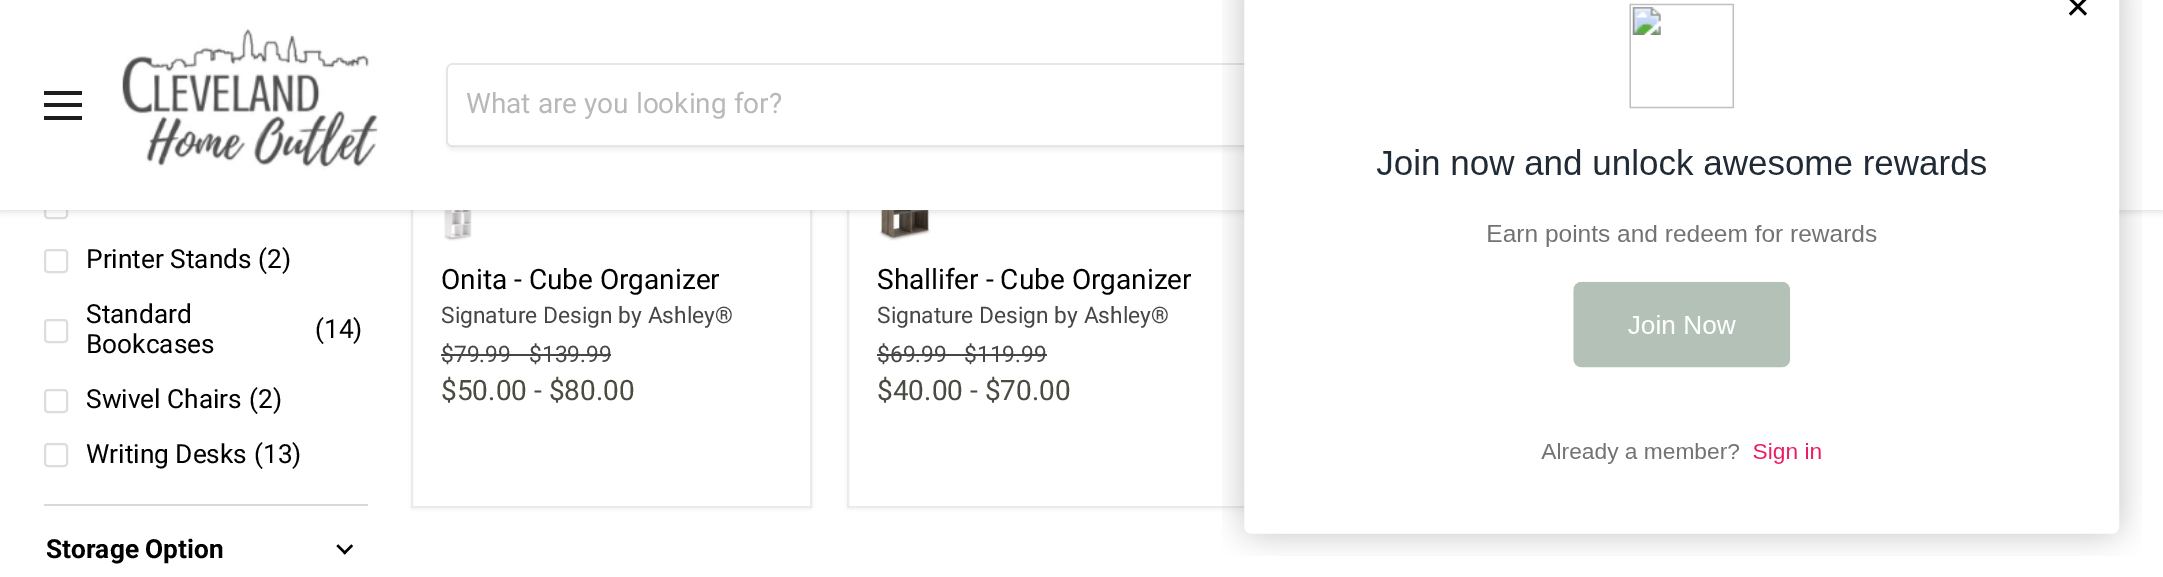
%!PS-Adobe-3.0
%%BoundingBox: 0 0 2163 577
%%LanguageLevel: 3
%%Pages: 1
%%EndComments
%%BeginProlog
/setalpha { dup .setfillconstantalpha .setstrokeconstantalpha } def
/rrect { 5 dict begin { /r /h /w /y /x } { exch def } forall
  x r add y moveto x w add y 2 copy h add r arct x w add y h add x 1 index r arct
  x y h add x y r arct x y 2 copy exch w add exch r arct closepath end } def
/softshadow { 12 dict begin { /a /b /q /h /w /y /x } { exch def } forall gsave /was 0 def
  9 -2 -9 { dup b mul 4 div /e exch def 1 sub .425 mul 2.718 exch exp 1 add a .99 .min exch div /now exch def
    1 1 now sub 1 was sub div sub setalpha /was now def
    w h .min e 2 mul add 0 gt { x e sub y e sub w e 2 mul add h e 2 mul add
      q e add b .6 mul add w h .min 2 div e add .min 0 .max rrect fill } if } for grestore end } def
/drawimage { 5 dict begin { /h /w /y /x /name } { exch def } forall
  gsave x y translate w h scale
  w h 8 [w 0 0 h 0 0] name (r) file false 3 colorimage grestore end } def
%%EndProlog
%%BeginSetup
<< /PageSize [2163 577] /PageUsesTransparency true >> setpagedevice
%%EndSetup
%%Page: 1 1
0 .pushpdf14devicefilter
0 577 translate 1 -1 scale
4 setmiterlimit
1 setgray
0 0 2163 577 rectfill
0.867 setgray
2 setlinewidth
45 195 22 23 3 rrect stroke
0.502 setgray
411 -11 401 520 0 3.5 0.11 softshadow
1 setgray
413 210 397 296 rectfill
0.922 setgray
412 -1 399 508 rectstroke
(images/4.raw) 444 210 28 32 drawimage
0.502 setgray
847 -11 401 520 0 3.5 0.11 softshadow
1 setgray
849 210 396 296 rectfill
0.922 setgray
848 -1 399 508 rectstroke
(images/5.raw) 877 210 54 31 drawimage
0.502 setgray
0 2 2163 210 0 3.5 0.25 softshadow
1 setgray
0 0 2163 210 rectfill
0.114 setgray
44 91 38 4 rectfill
44 103 38 4 rectfill
44 116 38 4 rectfill
(images/1.raw) 122 29 256 141 drawimage
gsave
newpath 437 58 moveto 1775 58 lineto 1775 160 lineto 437 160 lineto closepath 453 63 moveto 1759 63 lineto 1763 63 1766 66 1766 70 curveto 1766 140 lineto 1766 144 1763 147 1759 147 curveto 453 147 lineto 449 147 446 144 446 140 curveto 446 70 lineto 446 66 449 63 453 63 curveto closepath eoclip newpath
0.502 setgray
446 67 1320 84 7 2.5 0.11 softshadow
grestore
0.2 setalpha
0.502 setgray
447 64 1318 82 6 rrect stroke
1 setalpha
1 setgray
newpath 453 65 moveto 1670 65 lineto 1670 145 lineto 453 145 lineto 450 145 448 143 448 140 curveto 448 70 lineto 448 67 450 65 453 65 curveto closepath fill
(images/2.raw) 1222 0 920 556 drawimage
0.867 setgray
45 250 22 22 3 rrect stroke
45 320 22 22 3 rrect stroke
45 390 22 22 3 rrect stroke
45 444 22 22 3 rrect stroke
0.851 setgray
44 504 324 2 rectfill
(images/3.raw) 336 544 18 11 drawimage
0.275 setgray
441 354 88 2 rectfill
529 354 82 2 rectfill
877 354 87 2 rectfill
964 354 83 2 rectfill
/Roboto-Regular [28 0 0 -28 0 0] selectfont
0.722 setgray
466 113 moveto (What are you looking for?) show
/Roboto-Regular [26.25 0 0 -26.25 0 0] selectfont
0 setgray
86 268 moveto (Printer Stands) show
258 268 moveto (\(2\)) show
86 323 moveto (Standard) show
86 353 moveto (Bookcases) show
315 338 moveto (\(14\)) show
86 408 moveto (Swivel Chairs) show
249 408 moveto (\(2\)) show
86 463 moveto (Writing Desks) show
254 463 moveto (\(13\)) show
/Roboto-Bold [26.25 0 0 -26.25 0 0] selectfont
46 558 moveto (Storage Option) show
/Roboto-Regular [28 0 0 -28 0 0] selectfont
441 289 moveto (Onita - Cube Organizer) show
/Roboto-Regular [22.75 0 0 -22.75 0 0] selectfont
0.275 setgray
441 323 moveto (Signature Design by Ashley®) show
441 362 moveto ($79.99) show
529 362 moveto ($139.99) show
/Roboto-Regular [28 0 0 -28 0 0] selectfont
0.286 0.302 0.255 setrgbcolor
441 400 moveto ($50.00 - $80.00) show
0 setgray
877 289 moveto (Shallifer - Cube Organizer) show
/Roboto-Regular [22.75 0 0 -22.75 0 0] selectfont
0.275 setgray
877 323 moveto (Signature Design by Ashley®) show
877 362 moveto ($69.99) show
964 362 moveto ($119.99) show
/Roboto-Regular [28 0 0 -28 0 0] selectfont
0.286 0.302 0.255 setrgbcolor
877 400 moveto ($40.00 - $70.00) show
.poppdf14devicefilter showpage
%%EOF
